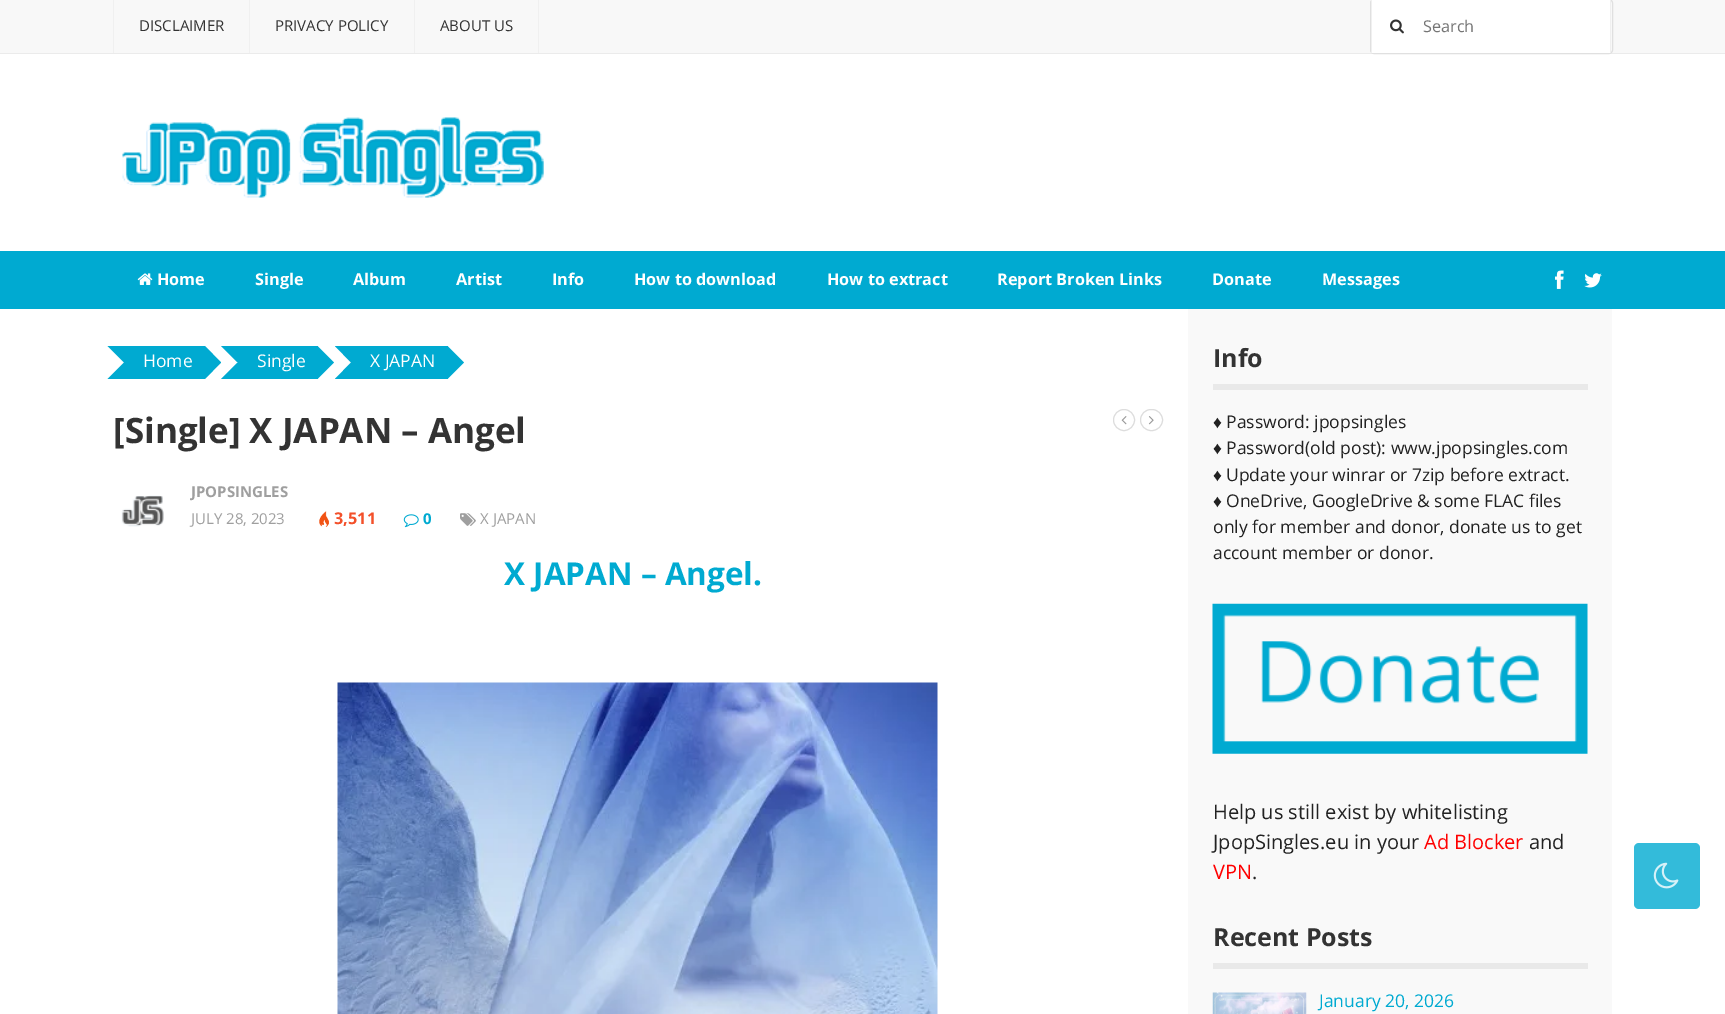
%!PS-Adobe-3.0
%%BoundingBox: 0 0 1725 1014
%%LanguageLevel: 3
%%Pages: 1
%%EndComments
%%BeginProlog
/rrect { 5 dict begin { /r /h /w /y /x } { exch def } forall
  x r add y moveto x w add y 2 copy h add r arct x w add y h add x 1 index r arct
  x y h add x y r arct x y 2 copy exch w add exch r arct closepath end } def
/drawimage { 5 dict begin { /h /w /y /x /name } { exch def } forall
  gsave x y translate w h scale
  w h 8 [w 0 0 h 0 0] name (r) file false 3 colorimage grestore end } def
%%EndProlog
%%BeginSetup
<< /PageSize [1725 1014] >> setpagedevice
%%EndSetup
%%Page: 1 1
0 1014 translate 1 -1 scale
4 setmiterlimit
1 setgray
0 0 1725 1014 rectfill
0.973 setgray
0 0 1725 53 rectfill
0.922 setgray
0 53 1725 1 rectfill
0.941 setgray
249 0 1 53 rectfill
113 0 1 53 rectfill
414 0 1 53 rectfill
538 0 1 53 rectfill
0.878 setgray
1370.5 -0.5 242 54 3.5 rrect stroke
1 setgray
1372 0 238 53 rectfill
(images/1.raw) 1390 19 14 15 drawimage
0.941 setgray
1610 0 1 53 rectfill
1371 0 1 53 rectfill
(images/2.raw) 122 117 422 81 drawimage
0 0.667 0.82 setrgbcolor
0 251 1725 58 rectfill
(images/3.raw) 137 273 16 12 drawimage
(images/4.raw) 1555 270 9 19 drawimage
(images/5.raw) 1584 273 18 15 drawimage
0.976 setgray
1188 309 424 705 rectfill
0 0.667 0.82 setrgbcolor
140 346 65 33 rectfill
newpath 107.5 346 moveto 140 346 lineto 124 362.5 lineto closepath fill
124 346 16 33 rectfill
newpath 140 379 moveto 107.5 379 lineto 124 362.5 lineto closepath fill
newpath 205 379 moveto 205 346 lineto 221 362.5 lineto closepath fill
254 346 64 33 rectfill
newpath 221 346 moveto 254 346 lineto 237.5 362.5 lineto closepath fill
238 346 16 33 rectfill
newpath 254 379 moveto 221 379 lineto 237.5 362.5 lineto closepath fill
newpath 317.5 379 moveto 317.5 346 lineto 334 362.5 lineto closepath fill
368 346 80 33 rectfill
newpath 335 346 moveto 367.5 346 lineto 351 362.5 lineto closepath fill
351 346 17 33 rectfill
newpath 367.5 379 moveto 335 379 lineto 351 362.5 lineto closepath fill
newpath 447.5 379 moveto 447.5 346 lineto 464 362.5 lineto closepath fill
0.867 setgray
newpath 1124 420 10.5 0 360 arc closepath stroke
(images/6.raw) 1121 416 6 9 drawimage
1140.5 409.5 22 21 10.5 rrect stroke
(images/7.raw) 1148 416 6 9 drawimage
(images/8.raw) 121 495 43 32 drawimage
(images/9.raw) 319 511 10 16 drawimage
(images/10.raw) 403 514 16 14 drawimage
(images/11.raw) 460 513 16 13 drawimage
(images/12.raw) 337 682 601 332 drawimage
0.914 setgray
1213 384 375 6 rectfill
(images/13.raw) 1212 603 376 151 drawimage
1213 963 375 6 rectfill
(images/14.raw) 1212 992 95 22 drawimage
0.2 0.733 0.855 setrgbcolor
1634 843 66 66 5 rrect fill
(images/15.raw) 1653 862 26 27 drawimage
/OpenSans-Regular [15 0 0 -15 0 0] selectfont
0.2 setgray
139 31 moveto (DISCLAIMER) show
275 31 moveto (PRIVACY POLICY) show
440 31 moveto (ABOUT US) show
/OpenSans-Regular [16.25 0 0 -16.25 0 0] selectfont
0.459 setgray
1423 32 moveto (Search) show
/OpenSans-Bold [16.25 0 0 -16.25 0 0] selectfont
1 setgray
157 285 moveto (Home) show
255 285 moveto (Single) show
353 285 moveto (Album) show
456 285 moveto (Artist) show
552 285 moveto (Info) show
634 285 moveto (How to download) show
827 285 moveto (How to extract) show
997 285 moveto (Report Broken Links) show
1212 285 moveto (Donate) show
1322 285 moveto (Messages) show
/OpenSans-Regular [17.5 0 0 -17.5 0 0] selectfont
143 367 moveto (Home) show
257 367 moveto (Single) show
370 367 moveto (X JAPAN) show
/OpenSans-Bold [35 0 0 -35 0 0] selectfont
0.2 setgray
113 443 moveto ([Single] X JAPAN – Angel) show
/OpenSans-Bold [15 0 0 -15 0 0] selectfont
0.624 setgray
191 497 moveto (JPOPSINGLES) show
/OpenSans-Regular [15 0 0 -15 0 0] selectfont
191 524 moveto (JULY 28, 2023) show
/OpenSans-Bold [16.25 0 0 -16.25 0 0] selectfont
0.953 0.314 0.165 setrgbcolor
334 524 moveto (3,511) show
/OpenSans-Bold [15 0 0 -15 0 0] selectfont
0 0.667 0.82 setrgbcolor
423 524 moveto (0) show
/OpenSans-Regular [15 0 0 -15 0 0] selectfont
0.624 setgray
480 524 moveto (X JAPAN) show
/OpenSans-Bold [31.5 0 0 -31.5 0 0] selectfont
0 0.667 0.82 setrgbcolor
504 585 moveto (X JAPAN – Angel.) show
/OpenSans-Bold [25 0 0 -25 0 0] selectfont
0.2 setgray
1213 367 moveto (Info) show
/LiberationSans-Regular [17.5 0 0 -17.5 0 0] selectfont
0.133 setgray
1213 428 moveto (♦) show
/OpenSans-Regular [17.5 0 0 -17.5 0 0] selectfont
1226 428 moveto (Password: jpopsingles) show
/LiberationSans-Regular [17.5 0 0 -17.5 0 0] selectfont
1213 454 moveto (♦) show
/OpenSans-Regular [17.5 0 0 -17.5 0 0] selectfont
1226 454 moveto (Password\(old post\): www.jpopsingles.com) show
/LiberationSans-Regular [17.5 0 0 -17.5 0 0] selectfont
1213 481 moveto (♦) show
/OpenSans-Regular [17.5 0 0 -17.5 0 0] selectfont
1226 481 moveto (Update your winrar or 7zip before extract.) show
/LiberationSans-Regular [17.5 0 0 -17.5 0 0] selectfont
1213 507 moveto (♦) show
/OpenSans-Regular [17.5 0 0 -17.5 0 0] selectfont
1226 507 moveto (OneDrive, GoogleDrive & some FLAC files) show
1213 533 moveto (only for member and donor, donate us to get) show
1213 559 moveto (account member or donor.) show
/OpenSans-Regular [20 0 0 -20 0 0] selectfont
1213 819 moveto (Help us still exist by whitelisting) show
1213 849 moveto (JpopSingles.eu in your) show
1 0 0 setrgbcolor
1424 849 moveto (Ad Blocker) show
0.133 setgray
1529 849 moveto (and) show
1 0 0 setrgbcolor
1213 879 moveto (VPN) show
0.133 setgray
1252 879 moveto (.) show
/OpenSans-Bold [25 0 0 -25 0 0] selectfont
0.2 setgray
1213 946 moveto (Recent Posts) show
/OpenSans-Regular [17.5 0 0 -17.5 0 0] selectfont
0 0.667 0.82 setrgbcolor
1319 1007 moveto (January 20, 2026) show
showpage
%%EOF
